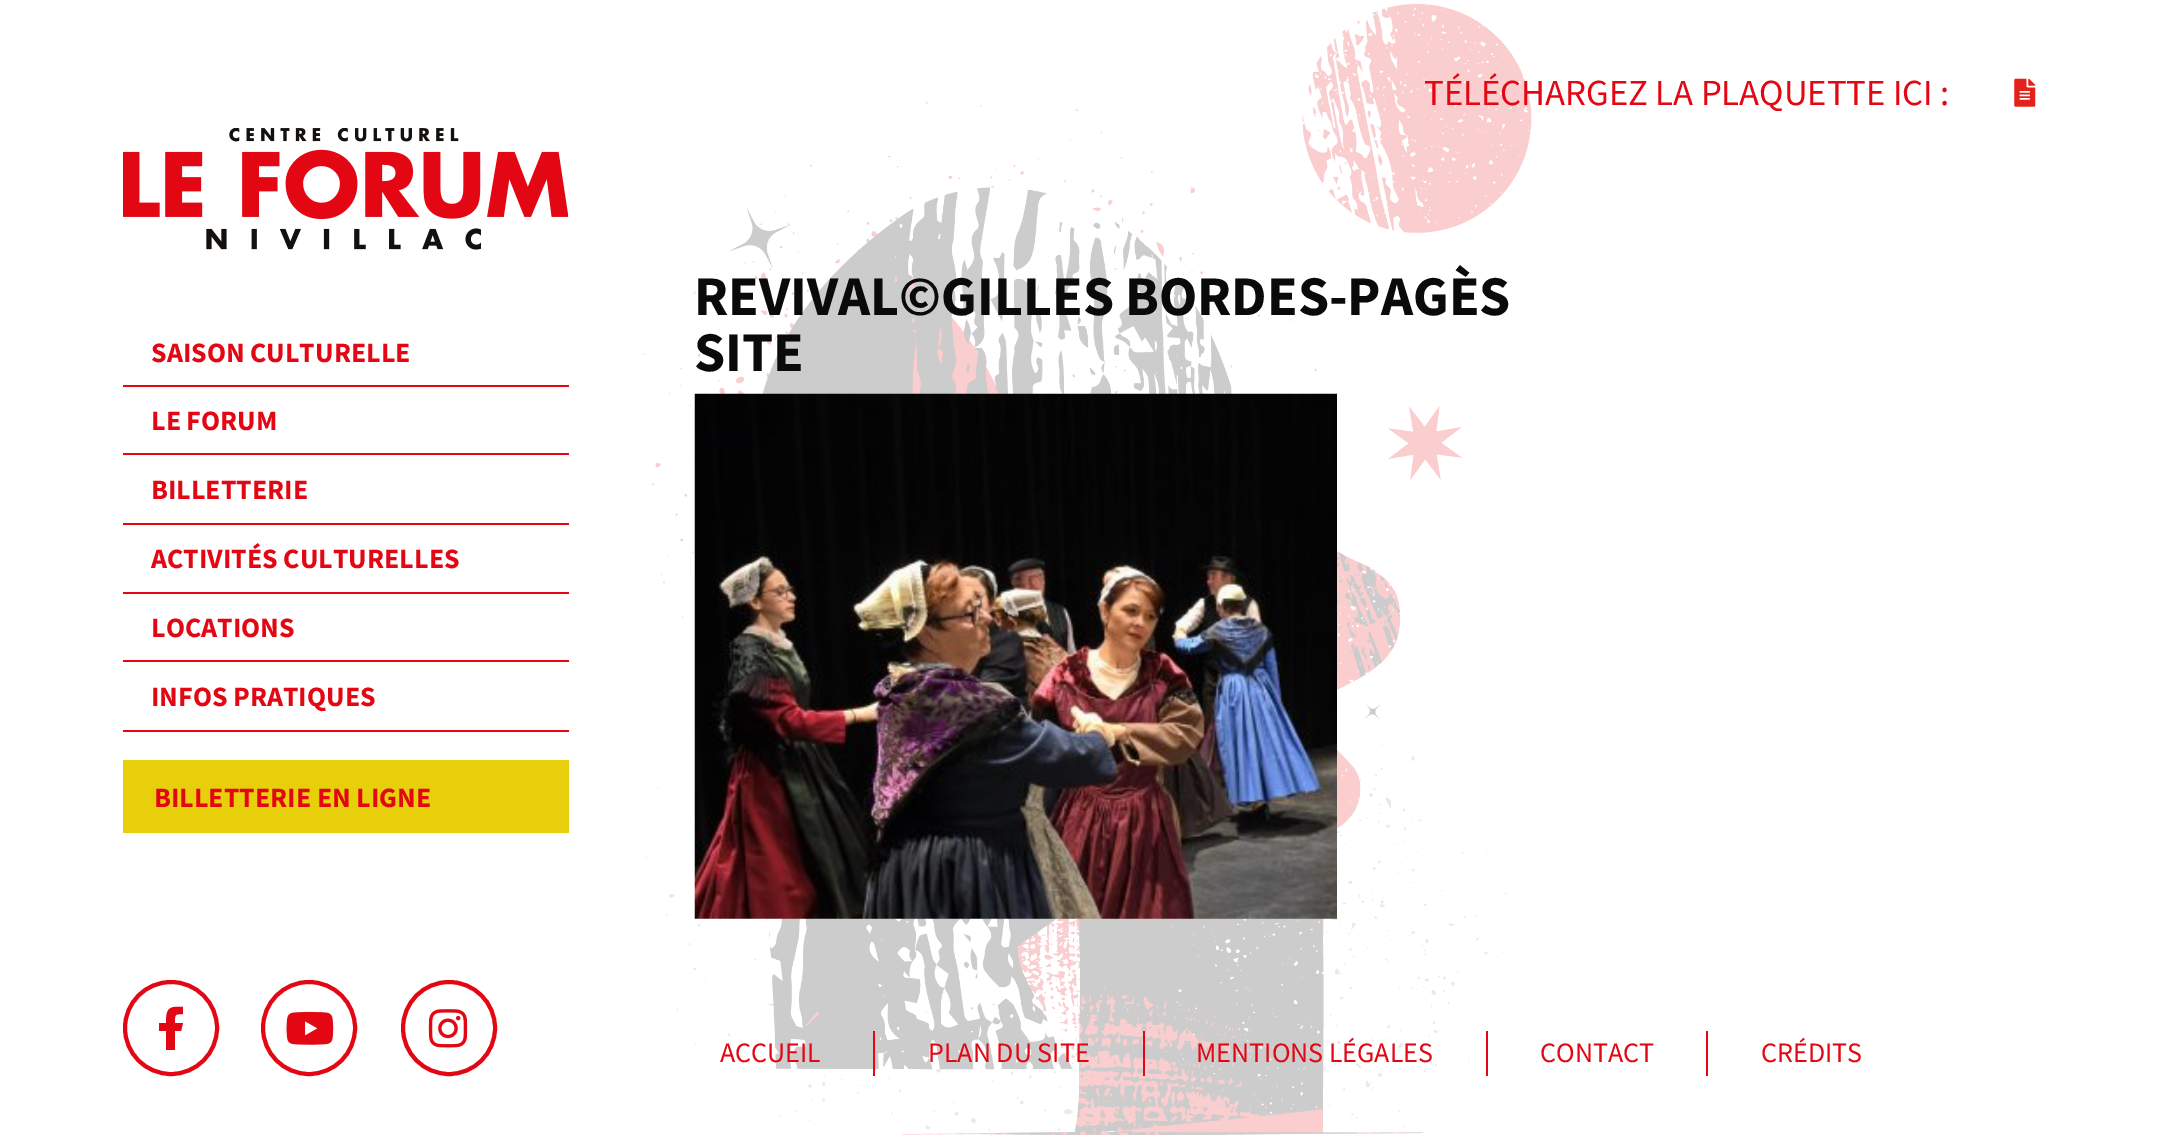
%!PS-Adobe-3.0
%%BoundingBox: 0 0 2167 1137
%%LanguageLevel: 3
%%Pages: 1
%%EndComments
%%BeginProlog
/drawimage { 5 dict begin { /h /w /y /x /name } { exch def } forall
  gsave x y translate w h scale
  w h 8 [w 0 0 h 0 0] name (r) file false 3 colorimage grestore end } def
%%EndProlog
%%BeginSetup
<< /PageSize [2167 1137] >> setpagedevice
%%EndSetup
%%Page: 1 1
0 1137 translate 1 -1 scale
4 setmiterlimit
1 setgray
0 0 2167 1137 rectfill
(images/1.raw) 643 4 889 1131 drawimage
(images/2.raw) 123 128 446 122 drawimage
0.89 0.024 0.075 setrgbcolor
123 385 446 2 rectfill
123 453 446 2 rectfill
123 523 446 2 rectfill
123 592 446 2 rectfill
123 660 446 2 rectfill
123 730 446 2 rectfill
0.906 0.812 0.047 setrgbcolor
123 760 446 73 rectfill
0.89 0.024 0.075 setrgbcolor
4 setlinewidth
newpath 171 1028 46 0 360 arc closepath stroke
newpath 181 1031 moveto 175 1031 lineto 175 1050 lineto 166 1050 lineto 166 1031 lineto 159 1031 lineto 159 1023 lineto 166 1023 lineto 166 1008 169 1006 183 1007 curveto 183 1014 lineto 174 1014 175 1015 175 1023 curveto 183 1023 lineto closepath fill
newpath 309 1028 46 0 360 arc closepath stroke
(images/3.raw) 286 1011 48 34 drawimage
newpath 449 1028 46 0 360 arc closepath stroke
(images/4.raw) 428 1009 40 39 drawimage
(images/5.raw) 2014 78 22 29 drawimage
(images/6.raw) 694 393 643 526 drawimage
873 1031 2 45 rectfill
1143 1031 2 45 rectfill
1486 1031 2 45 rectfill
1706 1031 2 45 rectfill
/SourceSansPro-Bold [28 0 0 -28 0 0] selectfont
151 362 moveto (SAISON CULTURELLE) show
151 430 moveto (LE FORUM) show
151 499 moveto (BILLETTERIE) show
151 568 moveto (ACTIVITÉS CULTURELLES) show
151 637 moveto (LOCATIONS) show
151 706 moveto (INFOS PRATIQUES) show
154 807 moveto (BILLETTERIE EN LIGNE) show
/SourceSansPro-Regular [36.75 0 0 -36.75 0 0] selectfont
1424 105 moveto (TÉLÉCHARGEZ LA PLAQUETTE ICI :) show
/SourceSansPro-Bold [56 0 0 -56 0 0] selectfont
0.039 setgray
694 315 moveto (REVIVAL©GILLES BORDES-PAGÈS) show
694 371 moveto (SITE) show
/SourceSansPro-Regular [28 0 0 -28 0 0] selectfont
0.89 0.024 0.075 setrgbcolor
720 1062 moveto (ACCUEIL) show
928 1062 moveto (PLAN DU SITE) show
1196 1062 moveto (MENTIONS LÉGALES) show
1540 1062 moveto (CONTACT) show
1761 1062 moveto (CRÉDITS) show
showpage
%%EOF
